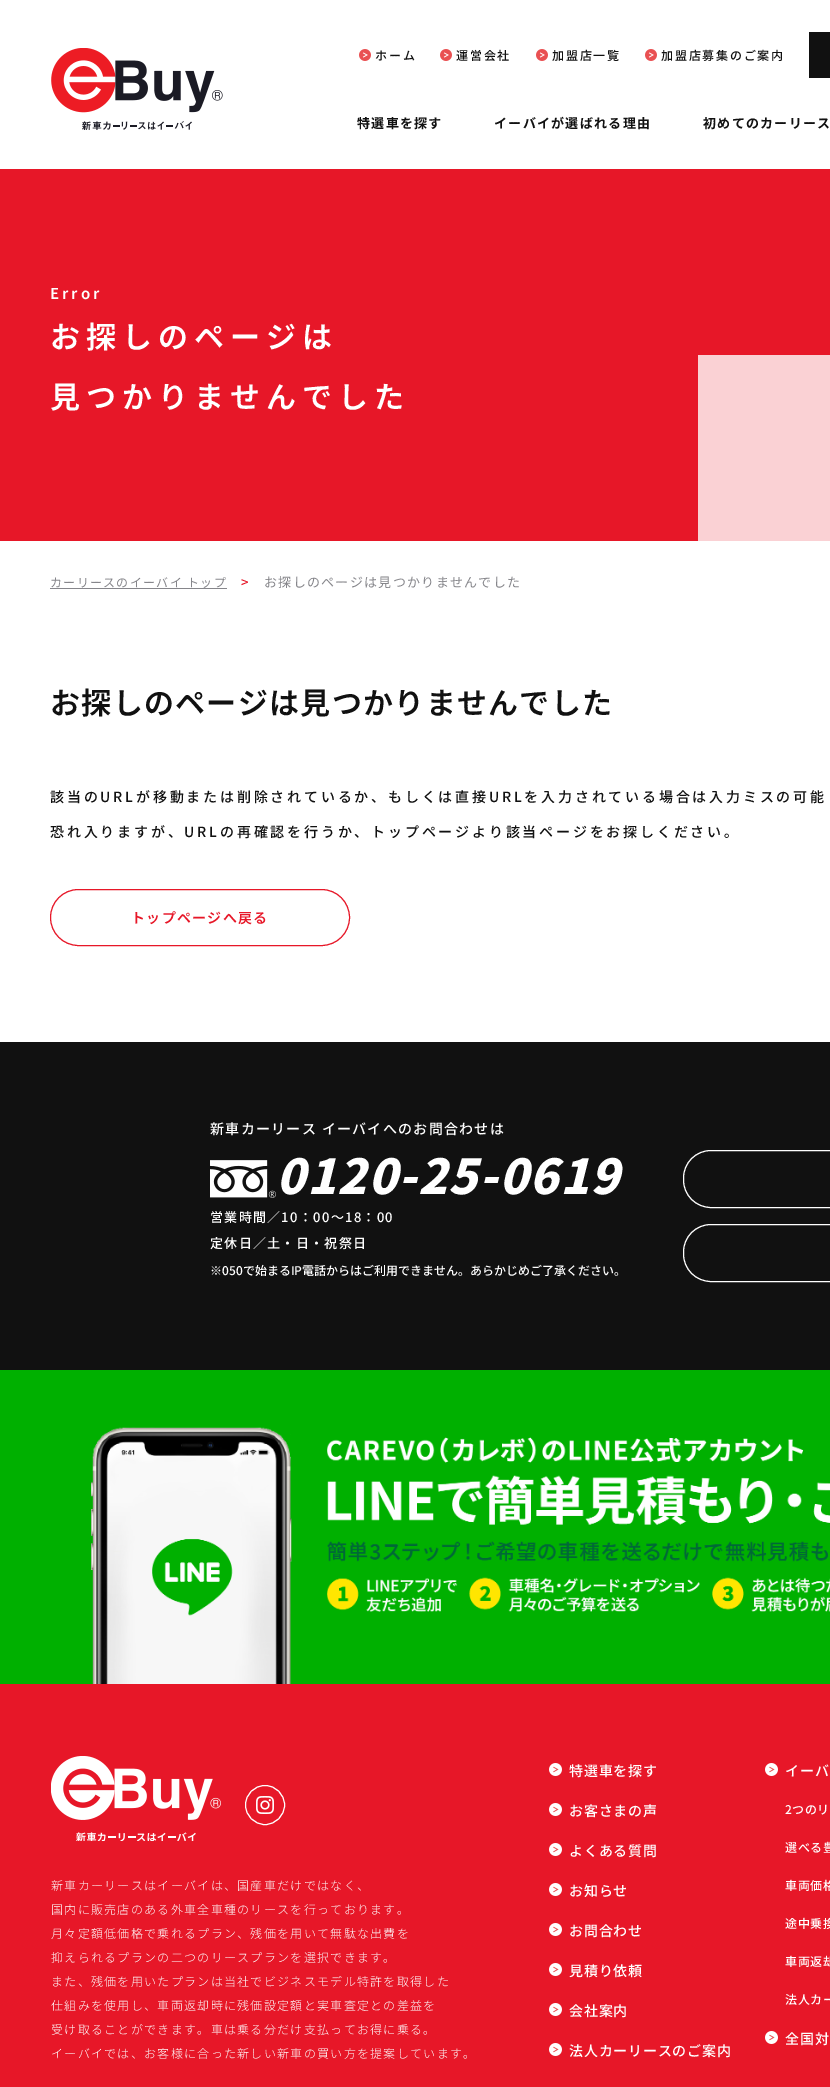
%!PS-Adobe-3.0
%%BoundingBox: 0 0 830 2087
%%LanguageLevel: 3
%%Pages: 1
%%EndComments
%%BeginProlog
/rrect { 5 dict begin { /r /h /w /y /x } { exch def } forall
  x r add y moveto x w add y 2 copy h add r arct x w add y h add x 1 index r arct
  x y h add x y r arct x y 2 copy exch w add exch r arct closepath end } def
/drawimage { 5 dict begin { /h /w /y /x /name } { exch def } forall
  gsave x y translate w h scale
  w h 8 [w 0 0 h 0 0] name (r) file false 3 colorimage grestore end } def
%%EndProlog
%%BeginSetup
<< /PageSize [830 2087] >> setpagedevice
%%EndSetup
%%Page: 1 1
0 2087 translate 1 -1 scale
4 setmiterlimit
1 setgray
0 0 830 2087 rectfill
(images/1.raw) 51 48 172 82 drawimage
(images/2.raw) 359 49 12 12 drawimage
(images/2.raw) 440 49 12 12 drawimage
(images/2.raw) 536 49 12 12 drawimage
(images/2.raw) 645 49 12 12 drawimage
0.067 setgray
809 32 21 46 rectfill
0.906 0.09 0.157 setrgbcolor
0 169 830 372 rectfill
0.98 0.82 0.831 setrgbcolor
698 355 132 186 rectfill
0.525 0.525 0.545 setrgbcolor
50 588 177 1 rectfill
0.906 0.09 0.157 setrgbcolor
50.5 889.5 299 56 28 rrect stroke
0.067 setgray
0 1042 830 328 rectfill
(images/3.raw) 210 1160 66 38 drawimage
1 setgray
683.5 1150.5 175 57 27.5 rrect stroke
683.5 1224.5 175 57 27.5 rrect stroke
0 0.69 0 setrgbcolor
0 1370 830 314 rectfill
(images/4.raw) 91 1427 739 257 drawimage
0.906 0.09 0.157 setrgbcolor
0 1684 830 403 rectfill
(images/5.raw) 51 1756 170 85 drawimage
1 setgray
newpath 265 1805 19.5 0 360 arc closepath stroke
(images/6.raw) 256 1796 18 18 drawimage
(images/7.raw) 549 1763 13 13 drawimage
(images/7.raw) 549 1803 13 13 drawimage
(images/7.raw) 549 1843 13 13 drawimage
(images/7.raw) 549 1883 13 13 drawimage
(images/7.raw) 549 1923 13 13 drawimage
(images/7.raw) 549 1963 13 13 drawimage
(images/7.raw) 549 2003 13 13 drawimage
(images/7.raw) 549 2043 13 13 drawimage
(images/7.raw) 765 1763 13 13 drawimage
(images/7.raw) 765 2031 13 13 drawimage
/NotoSansJP-Medium [12 0 0 -12 0 0] selectfont
0.067 setgray
375 60 moveto 1.75 0 (ホーム) ashow
456 60 moveto 1.75 0 (運営会社) ashow
552 60 moveto 1.75 0 (加盟店一覧) ashow
661 60 moveto 1.75 0 (加盟店募集のご案内) ashow
/NotoSansJP-Bold [13 0 0 -13 0 0] selectfont
357 128 moveto 1.3 0 (特選車を探す) ashow
494 128 moveto 1.3 0 (イーバイが選ばれる理由) ashow
703 128 moveto 1.3 0 (初めてのカーリース) ashow
/NotoSansJP-SemiBold [15 0 0 -15 0 0] selectfont
1 setgray
50 299 moveto 3 0 (Error) ashow
/NotoSansJP-SemiBold [30 0 0 -30 0 0] selectfont
50 348 moveto 6 0 (お探しのページは) ashow
50 408 moveto 6 0 (見つかりませんでした) ashow
/NotoSansJP-Regular [12 0 0 -12 0 0] selectfont
0.525 0.525 0.545 setrgbcolor
50 587 moveto 1.3 0 (カーリースのイーバイ トップ) ashow
/NotoSansJP-Medium [13 0 0 -13 0 0] selectfont
0.906 0.09 0.157 setrgbcolor
241 587 moveto 1.3 0 (>) ashow
/NotoSansJP-Regular [13 0 0 -13 0 0] selectfont
0.525 0.525 0.545 setrgbcolor
264 587 moveto 1.3 0 (お探しのページは見つかりませんでした) ashow
/NotoSansJP-SemiBold [30 0 0 -30 0 0] selectfont
0.067 setgray
50 714 moveto 1.3 0 (お探しのページは見つかりませんでした) ashow
/NotoSansJP-Medium [14 0 0 -14 0 0] selectfont
50 802 moveto 2.8 0 (該当のURLが移動または削除されているか、もしくは直接URLを入力されている場合は入力ミスの可能) ashow
50 837 moveto 2.8 0 (恐れ入りますが、URLの再確認を行うか、トップページより該当ページをお探しください。) ashow
/NotoSansJP-SemiBold [14 0 0 -14 0 0] selectfont
0.906 0.09 0.157 setrgbcolor
131 923 moveto 1.3 0 (トップページへ戻る) ashow
/NotoSansJP-Medium [14 0 0 -14 0 0] selectfont
1 setgray
210 1134 moveto 1.3 0 (新車カーリース イーバイへのお問合わせは) ashow
/NotoSansJP-BlackItalic [48 0 0 -48 0 0] selectfont
276 1194 moveto 1.3 0 (0120-25-0619) ashow
/NotoSansJP-Medium [13 0 0 -13 0 0] selectfont
210 1222 moveto 1.3 0 (営業時間／10：00～18：00) ashow
210 1248 moveto 1.3 0 (定休日／土・日・祝祭日) ashow
/NotoSansJP-Medium [12 0 0 -12 0 0] selectfont
210 1275 moveto (※050で始まるIP電話からはご利用できません。あらかじめご了承ください。) show
/NotoSansJP-Light [12 0 0 -12 0 0] selectfont
51 1890 moveto 1.3 0 (新車カーリースはイーバイは、国産車だけではなく、) ashow
51 1914 moveto 1.3 0 (国内に販売店のある外車全車種のリースを行っております。) ashow
51 1938 moveto 1.3 0 (月々定額低価格で乗れるプラン、残価を用いて無駄な出費を) ashow
51 1962 moveto 1.3 0 (抑えられるプランの二つのリースプランを選択できます。) ashow
51 1986 moveto 1.3 0 (また、残価を用いたプランは当社でビジネスモデル特許を取得した) ashow
51 2010 moveto 1.3 0 (仕組みを使用し、車両返却時に残価設定額と実車査定との差益を) ashow
51 2034 moveto 1.3 0 (受け取ることができます。車は乗る分だけ支払ってお得に乗る。) ashow
51 2058 moveto 1.3 0 (イーバイでは、お客様に合った新しい新車の買い方を提案しています。) ashow
/NotoSansJP-Medium [14 0 0 -14 0 0] selectfont
569 1776 moveto 0.75 0 (特選車を探す) ashow
569 1816 moveto 0.75 0 (お客さまの声) ashow
569 1856 moveto 0.75 0 (よくある質問) ashow
569 1896 moveto 0.75 0 (お知らせ) ashow
569 1936 moveto 0.75 0 (お問合わせ) ashow
569 1976 moveto 0.75 0 (見積り依頼) ashow
569 2016 moveto 0.75 0 (会社案内) ashow
569 2056 moveto 0.75 0 (法人カーリースのご案内) ashow
785 1776 moveto 0.75 0 (イーバ) ashow
/NotoSansJP-Medium [12 0 0 -12 0 0] selectfont
785 1814 moveto 0.5 0 (2つのリ) ashow
785 1852 moveto 0.5 0 (選べる豊) ashow
785 1890 moveto 0.5 0 (車両価格) ashow
785 1928 moveto 0.5 0 (途中乗換) ashow
785 1966 moveto 0.5 0 (車両返却) ashow
785 2004 moveto 0.5 0 (法人カー) ashow
/NotoSansJP-Medium [14 0 0 -14 0 0] selectfont
785 2044 moveto 0.75 0 (全国対) ashow
showpage
%%EOF
